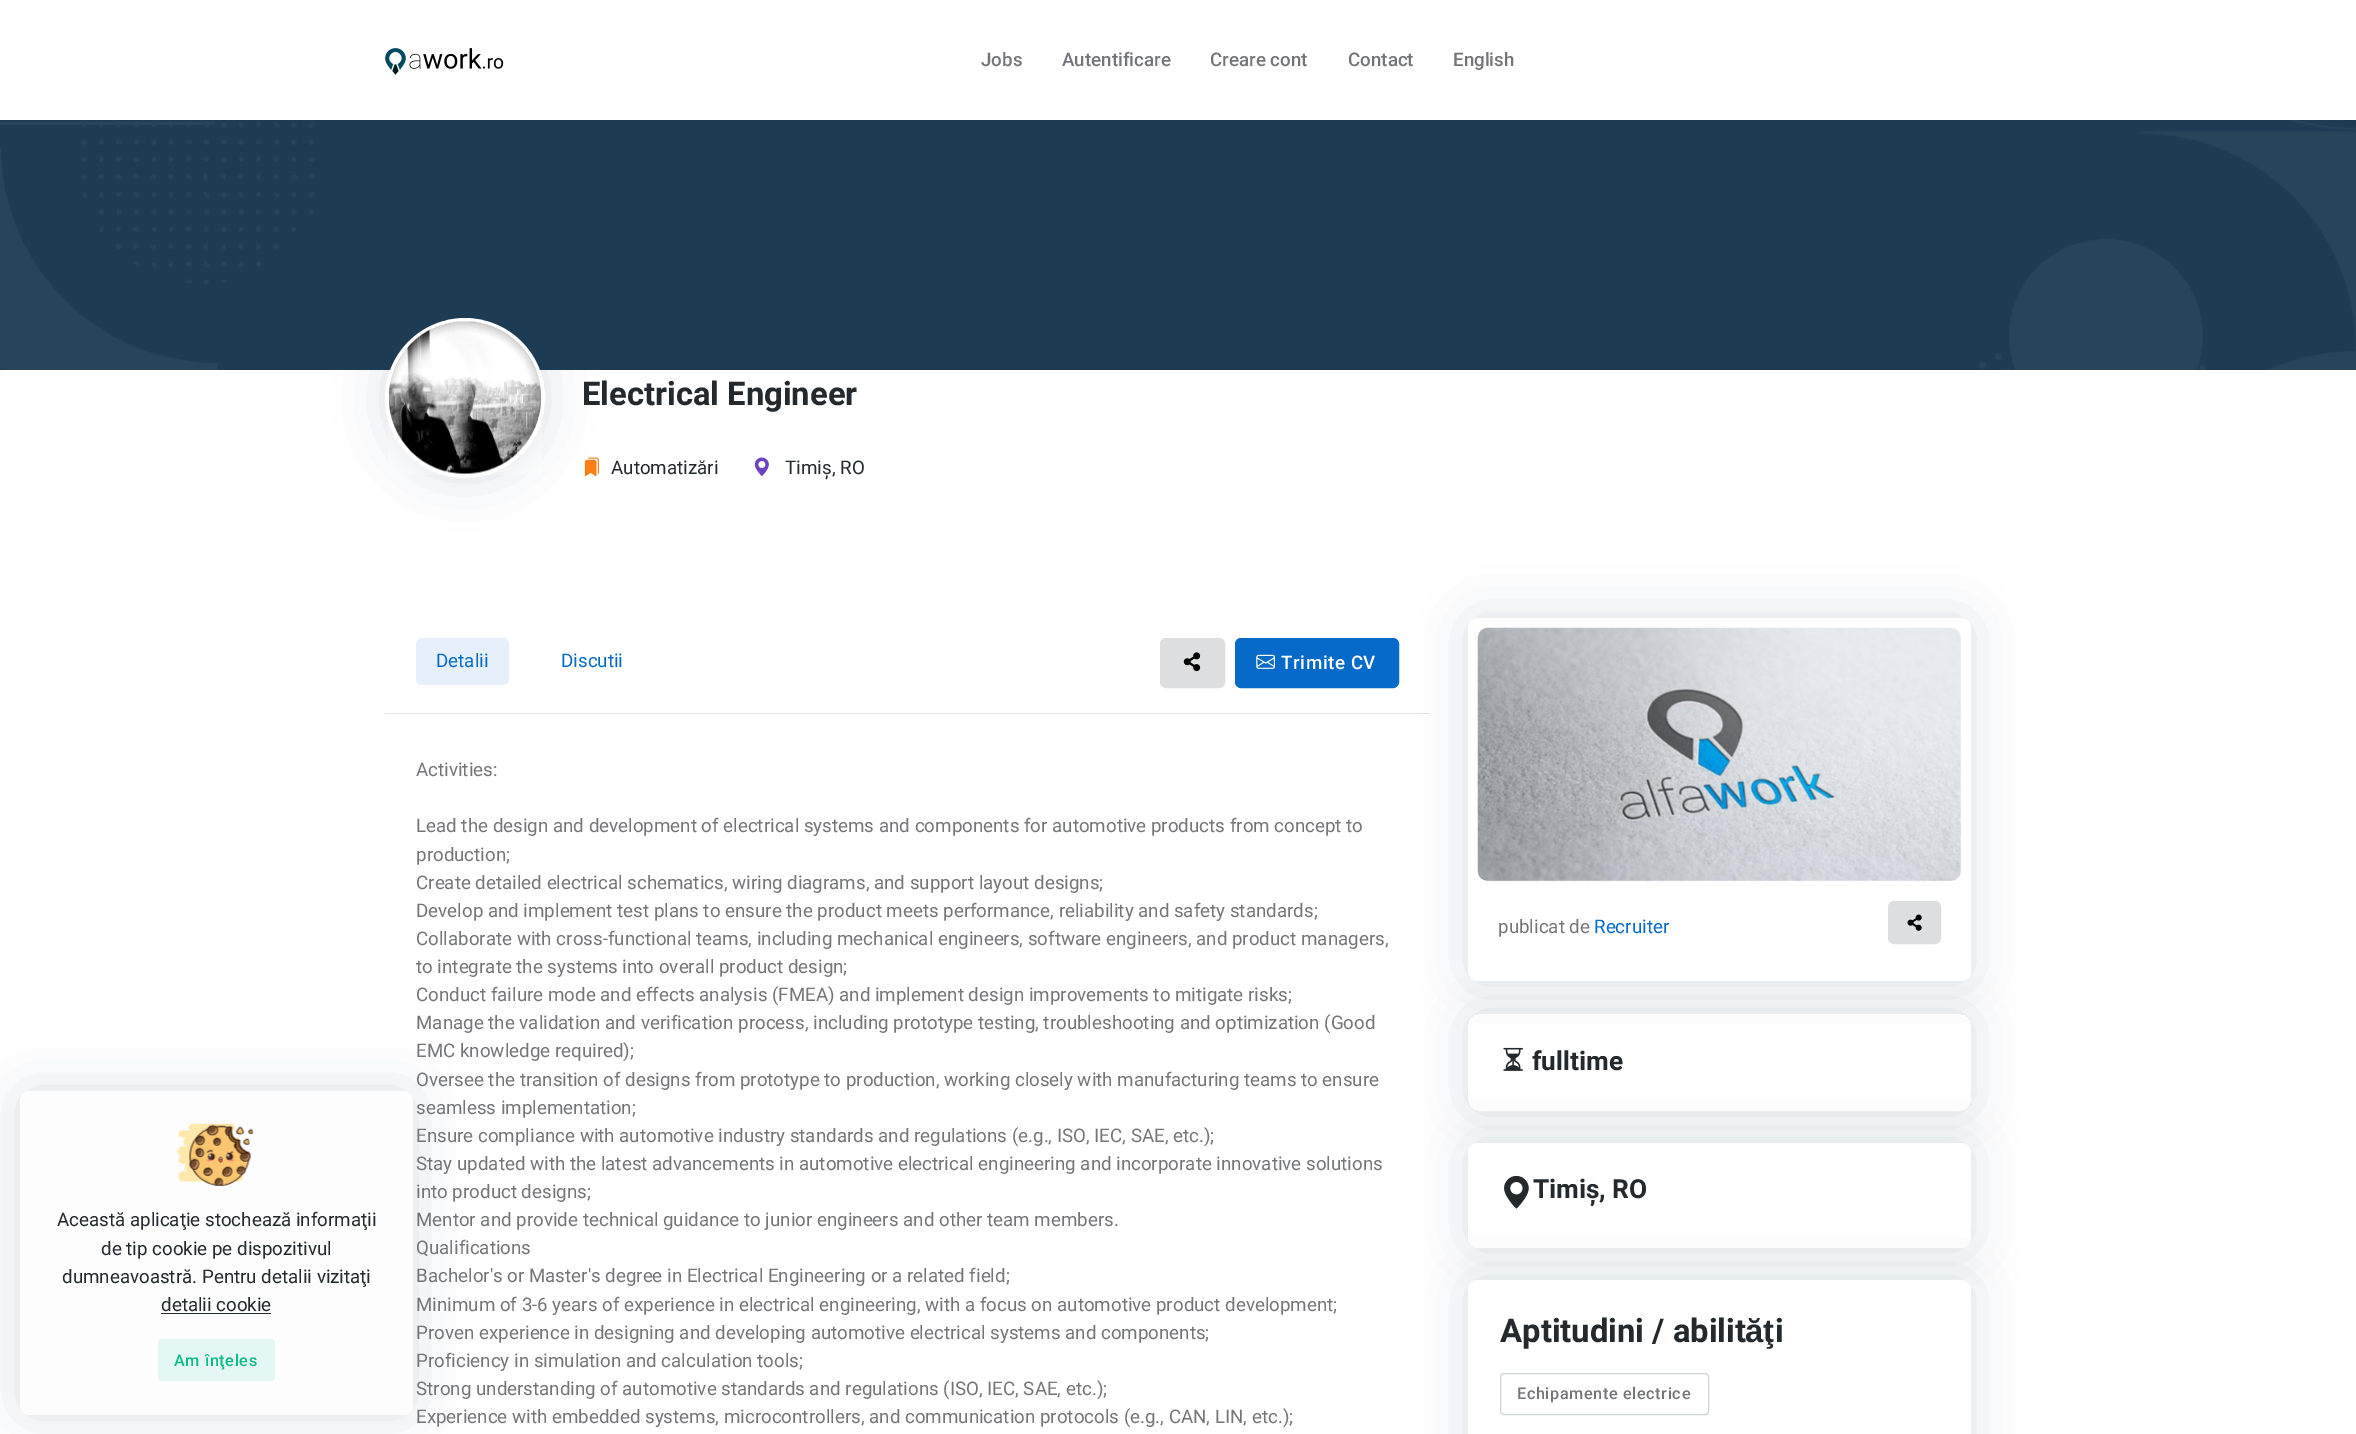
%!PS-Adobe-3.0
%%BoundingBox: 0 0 2356 1434
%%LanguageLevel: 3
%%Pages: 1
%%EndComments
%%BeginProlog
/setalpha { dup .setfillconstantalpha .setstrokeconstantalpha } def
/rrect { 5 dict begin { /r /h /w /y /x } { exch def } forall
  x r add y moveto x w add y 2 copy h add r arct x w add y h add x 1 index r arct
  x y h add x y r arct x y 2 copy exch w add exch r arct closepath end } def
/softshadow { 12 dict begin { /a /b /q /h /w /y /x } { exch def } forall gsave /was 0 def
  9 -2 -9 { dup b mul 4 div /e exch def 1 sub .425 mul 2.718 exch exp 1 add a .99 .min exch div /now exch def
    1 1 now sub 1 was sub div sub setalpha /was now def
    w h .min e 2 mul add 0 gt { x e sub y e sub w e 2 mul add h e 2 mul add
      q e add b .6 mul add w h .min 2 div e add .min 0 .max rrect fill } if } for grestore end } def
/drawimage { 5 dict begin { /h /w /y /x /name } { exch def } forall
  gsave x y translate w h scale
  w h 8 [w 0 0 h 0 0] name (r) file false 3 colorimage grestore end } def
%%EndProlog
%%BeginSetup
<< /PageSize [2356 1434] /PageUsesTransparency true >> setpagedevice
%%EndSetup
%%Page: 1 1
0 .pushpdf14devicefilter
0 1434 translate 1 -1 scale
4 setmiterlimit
1 setgray
0 0 2356 1434 rectfill
(images/1.raw) 385 48 119 27 drawimage
0.114 0.227 0.325 setrgbcolor
20 1091 393 324 10 25 0.15 softshadow
0.992 0.992 0.996 setrgbcolor
20 1091 393 324 10 rrect fill
(images/2.raw) 177 1123 77 63 drawimage
0.141 0.161 0.176 setrgbcolor
161 1313 110 1 rectfill
0.898 0.969 0.949 setrgbcolor
158 1339 117 42 4 rrect fill
0.114 0.231 0.325 setrgbcolor
0 120 2356 250 rectfill
(images/3.raw) 0 120 2356 250 drawimage
(images/5.raw) 584 457 15 20 drawimage
0.114 0.227 0.325 setrgbcolor
385 318 160 160 80 25 0.15 softshadow
1 setgray
4 setlinewidth
newpath 465 398 78 0 360 arc closepath stroke
(images/4.raw) 388 321 154 154 drawimage
(images/6.raw) 754 457 15 20 drawimage
0.902 setgray
385 713 1045 1 rectfill
0.902 0.941 0.98 setrgbcolor
416 638 93 47 6 rrect fill
0.867 0.871 0.878 setrgbcolor
1160.5 638.5 64 49 5.5 rrect gsave fill grestore
1 setlinewidth
stroke
(images/7.raw) 1183 652 18 20 drawimage
0.024 0.416 0.788 setrgbcolor
1235.5 638.5 163 49 5.5 rrect gsave fill grestore
stroke
(images/8.raw) 1256 654 19 15 drawimage
gsave
newpath 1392 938 moveto 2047 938 lineto 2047 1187 lineto 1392 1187 lineto closepath 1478 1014 moveto 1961 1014 lineto 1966.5 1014 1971 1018.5 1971 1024 curveto 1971 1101 lineto 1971 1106.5 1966.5 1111 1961 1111 curveto 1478 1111 lineto 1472.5 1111 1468 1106.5 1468 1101 curveto 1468 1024 lineto 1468 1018.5 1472.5 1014 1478 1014 curveto closepath eoclip newpath
0.114 0.227 0.325 setrgbcolor
1468 1014 503 97 10 25 0.15 softshadow
grestore
(images/11.raw) 1503 1047 20 24 drawimage
0.114 0.227 0.325 setrgbcolor
1468 618 503 363 10 25 0.15 softshadow
1 setgray
1468 618 503 363 10 rrect fill
(images/9.raw) 1477 627 485 255 drawimage
0.867 0.871 0.878 setrgbcolor
1888.5 901.5 52 42 5.5 rrect gsave fill grestore
stroke
(images/10.raw) 1907 914 15 17 drawimage
0.114 0.227 0.325 setrgbcolor
1468 1143 503 105 10 25 0.15 softshadow
1 setgray
1468 1143 503 105 10 rrect fill
(images/12.raw) 1504 1175 25 34 drawimage
0.114 0.227 0.325 setrgbcolor
1468 1280 503 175 10 25 0.15 softshadow
1 setgray
1468 1280 503 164 10 rrect fill
0.812 0.827 0.843 setrgbcolor
1500.5 1373.5 208 41 3.5 rrect stroke
/Roboto-Medium [18.75 0 0 -18.75 0 0] selectfont
0.455 0.459 0.475 setrgbcolor
981 66 moveto (Jobs) show
1062 66 moveto (Autentificare) show
1210 66 moveto (Creare cont) show
1348 66 moveto (Contact) show
1453 66 moveto (English) show
/Roboto-Regular [18.75 0 0 -18.75 0 0] selectfont
0.141 0.161 0.176 setrgbcolor
57 1226 moveto (Această aplicaţie stochează informaţii) show
101 1255 moveto (de tip cookie pe dispozitivul) show
62 1283 moveto (dumneavoastră. Pentru detalii vizitaţi) show
161 1311 moveto (detalii cookie) show
/Roboto-Medium [16.25 0 0 -16.25 0 0] selectfont
0.047 0.737 0.529 setrgbcolor
174 1366 moveto 0.6 0 (Am înţeles) ashow
/Heebo-Bold [32.75 0 0 -32.75 0 0] selectfont
0.141 0.161 0.176 setrgbcolor
582 405 moveto (Electrical Engineer) show
/Heebo-Regular [18.75 0 0 -18.75 0 0] selectfont
611 474 moveto (Automatizări) show
785 474 moveto (Timiș, RO) show
/Roboto-Regular [18.75 0 0 -18.75 0 0] selectfont
0.024 0.416 0.788 setrgbcolor
436 667 moveto (Detalii) show
561 667 moveto (Discutii) show
/Roboto-Medium [18.75 0 0 -18.75 0 0] selectfont
1 setgray
1281 669 moveto 0.6 0 (Trimite CV) ashow
/Roboto-Regular [18.75 0 0 -18.75 0 0] selectfont
0.455 0.459 0.475 setrgbcolor
416 776 moveto (Activities:) show
416 832 moveto (Lead the design and development of electrical systems and components for automotive products from concept to) show
416 861 moveto (production;) show
416 889 moveto (Create detailed electrical schematics, wiring diagrams, and support layout designs;) show
416 917 moveto (Develop and implement test plans to ensure the product meets performance, reliability and safety standards;) show
416 945 moveto (Collaborate with cross-functional teams, including mechanical engineers, software engineers, and product managers,) show
416 973 moveto (to integrate the systems into overall product design;) show
416 1001 moveto (Conduct failure mode and effects analysis \(FMEA\) and implement design improvements to mitigate risks;) show
416 1029 moveto (Manage the validation and verification process, including prototype testing, troubleshooting and optimization \(Good) show
416 1057 moveto (EMC knowledge required\);) show
416 1086 moveto (Oversee the transition of designs from prototype to production, working closely with manufacturing teams to ensure) show
416 1114 moveto (seamless implementation;) show
416 1142 moveto (Ensure compliance with automotive industry standards and regulations \(e.g., ISO, IEC, SAE, etc.\);) show
416 1170 moveto (Stay updated with the latest advancements in automotive electrical engineering and incorporate innovative solutions) show
416 1198 moveto (into product designs;) show
416 1226 moveto (Mentor and provide technical guidance to junior engineers and other team members.) show
416 1254 moveto (Qualifications) show
416 1282 moveto (Bachelor's or Master's degree in Electrical Engineering or a related field;) show
416 1311 moveto (Minimum of 3-6 years of experience in electrical engineering, with a focus on automotive product development;) show
416 1339 moveto (Proven experience in designing and developing automotive electrical systems and components;) show
416 1367 moveto (Proficiency in simulation and calculation tools;) show
416 1395 moveto (Strong understanding of automotive standards and regulations \(ISO, IEC, SAE, etc.\);) show
416 1423 moveto (Experience with embedded systems, microcontrollers, and communication protocols \(e.g., CAN, LIN, etc.\);) show
1498 933 moveto (publicat de) show
0.024 0.416 0.788 setrgbcolor
1594 933 moveto (Recruiter) show
/Heebo-Bold [26.25 0 0 -26.25 0 0] selectfont
0.141 0.161 0.176 setrgbcolor
1532 1070 moveto (fulltime) show
1533 1198 moveto (Timiș, RO) show
/Heebo-Bold [32.75 0 0 -32.75 0 0] selectfont
1500 1342 moveto (Aptitudini / abilit) show
/LiberationSans-Bold [32.75 0 0 -32.75 0 0] selectfont
1745 1342 moveto (ăţ) show
/Heebo-Bold [32.75 0 0 -32.75 0 0] selectfont
1775 1342 moveto (i) show
/Roboto-Medium [16.25 0 0 -16.25 0 0] selectfont
0.455 0.459 0.475 setrgbcolor
1517 1399 moveto 0.6 0 (Echipamente electrice) ashow
.poppdf14devicefilter showpage
%%EOF
